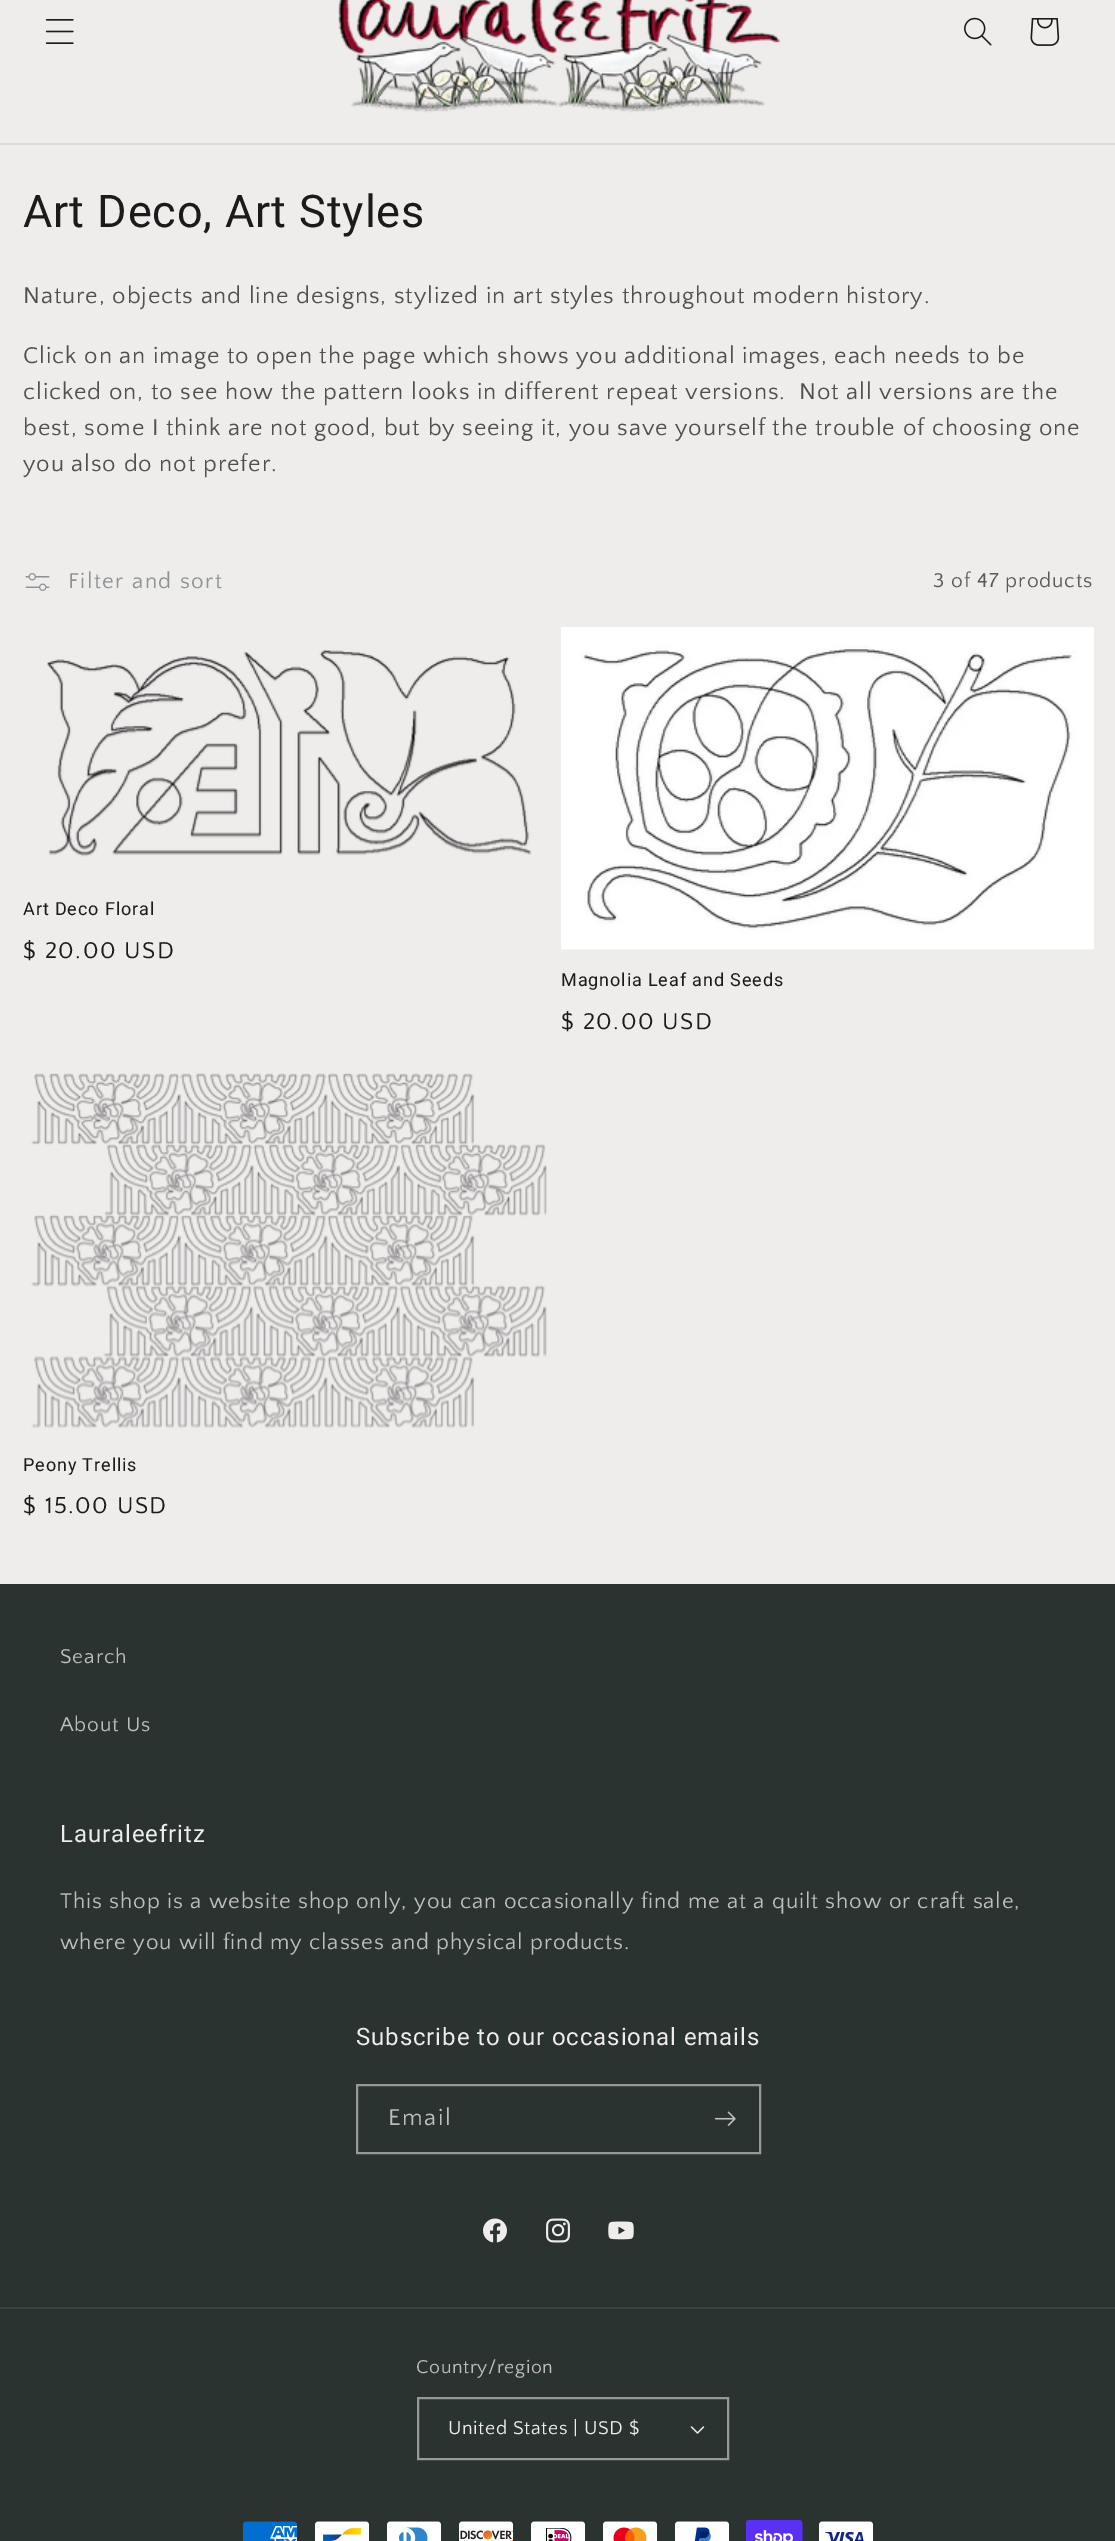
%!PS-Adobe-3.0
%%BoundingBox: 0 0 1115 2541
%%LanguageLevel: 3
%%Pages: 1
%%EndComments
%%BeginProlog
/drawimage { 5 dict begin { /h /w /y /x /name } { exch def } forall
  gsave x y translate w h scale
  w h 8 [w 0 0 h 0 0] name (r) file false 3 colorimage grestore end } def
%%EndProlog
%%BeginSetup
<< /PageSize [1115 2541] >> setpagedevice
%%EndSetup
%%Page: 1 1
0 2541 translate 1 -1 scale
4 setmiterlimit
0.937 0.925 0.925 setrgbcolor
0 0 1115 2541 rectfill
0.871 0.859 0.859 setrgbcolor
0 143 1115 2 rectfill
(images/1.raw) 45 19 29 25 drawimage
(images/2.raw) 338 0 443 113 drawimage
(images/3.raw) 964 17 28 29 drawimage
(images/4.raw) 1030 18 30 28 drawimage
(images/5.raw) 25 573 25 18 drawimage
(images/6.raw) 47 650 485 207 drawimage
(images/7.raw) 561 627 533 323 drawimage
(images/8.raw) 31 1073 516 355 drawimage
0.165 0.2 0.184 setrgbcolor
0 1584 1115 957 rectfill
0.588 0.6 0.592 setrgbcolor
2 setlinewidth
357 2085 403 68 rectstroke
(images/9.raw) 714 2111 22 15 drawimage
(images/10.raw) 483 2218 24 25 drawimage
(images/11.raw) 546 2218 24 25 drawimage
(images/12.raw) 608 2221 26 19 drawimage
0.227 0.259 0.243 setrgbcolor
0 2307 1115 2 rectfill
(images/13.raw) 690 2426 15 8 drawimage
0.588 0.6 0.592 setrgbcolor
418 2398 310 61 rectstroke
(images/14.raw) 243 2521 54 20 drawimage
(images/15.raw) 315 2521 54 20 drawimage
(images/16.raw) 387 2521 54 20 drawimage
(images/17.raw) 459 2521 54 20 drawimage
(images/18.raw) 531 2521 54 20 drawimage
(images/19.raw) 603 2521 54 20 drawimage
(images/20.raw) 675 2521 54 20 drawimage
(images/21.raw) 746 2520 57 21 drawimage
(images/22.raw) 819 2521 54 20 drawimage
/Roboto-Regular [45 0 0 -45 0 0] selectfont
0.11 0.102 0.102 setrgbcolor
23 227 moveto 0.9 0 (Art Deco, Art Styles) ashow
/QuattrocentoSans-Regular [24 0 0 -24 0 0] selectfont
0.318 0.31 0.31 setrgbcolor
23 303 moveto 0.9 0 (Nature, objects and line designs, stylized in art styles throughout modern history.) ashow
23 363 moveto 0.9 0 (Click on an image to open the page which shows you additional images, each needs to be) ashow
23 399 moveto 0.9 0 (clicked on, to see how the pattern looks in different repeat versions.  Not all versions are the) ashow
23 435 moveto 0.9 0 (best, some I think are not good, but by seeing it, you save yourself the trouble of choosing one) ashow
23 471 moveto 0.9 0 (you also do not prefer.) ashow
/QuattrocentoSans-Regular [22.5 0 0 -22.5 0 0] selectfont
0.549 0.576 0.573 setrgbcolor
68 588 moveto 1.5 0 (Filter and sort) ashow
/QuattrocentoSans-Regular [21 0 0 -21 0 0] selectfont
0.357 0.349 0.349 setrgbcolor
933 587 moveto 0.9 0 (3 of 47 products) ashow
/Roboto-Regular [18 0 0 -18 0 0] selectfont
0.11 0.102 0.102 setrgbcolor
23 915 moveto 0.9 0 (Art Deco Floral) ashow
/QuattrocentoSans-Regular [24 0 0 -24 0 0] selectfont
23 958 moveto 1.5 0 ($ 20.00 USD) ashow
/Roboto-Regular [18 0 0 -18 0 0] selectfont
561 986 moveto 0.9 0 (Magnolia Leaf and Seeds) ashow
/QuattrocentoSans-Regular [24 0 0 -24 0 0] selectfont
561 1029 moveto 1.5 0 ($ 20.00 USD) ashow
/Roboto-Regular [18 0 0 -18 0 0] selectfont
23 1471 moveto 0.9 0 (Peony Trellis) ashow
/QuattrocentoSans-Regular [24 0 0 -24 0 0] selectfont
23 1513 moveto 1.5 0 ($ 15.00 USD) ashow
/QuattrocentoSans-Regular [21 0 0 -21 0 0] selectfont
0.745 0.745 0.741 setrgbcolor
60 1663 moveto 0.9 0 (Search) ashow
60 1731 moveto 0.9 0 (About Us) ashow
/Roboto-Regular [24 0 0 -24 0 0] selectfont
0.937 0.925 0.925 setrgbcolor
60 1842 moveto 0.9 0 (Lauraleefritz) ashow
/QuattrocentoSans-Regular [22.5 0 0 -22.5 0 0] selectfont
0.745 0.745 0.741 setrgbcolor
60 1908 moveto 0.9 0 (This shop is a website shop only, you can occasionally find me at a quilt show or craft sale,) ashow
60 1949 moveto 0.9 0 (where you will find my classes and physical products.) ashow
/Roboto-Regular [24 0 0 -24 0 0] selectfont
0.937 0.925 0.925 setrgbcolor
356 2045 moveto 0.9 0 (Subscribe to our occasional emails) ashow
/QuattrocentoSans-Regular [24 0 0 -24 0 0] selectfont
0.745 0.745 0.741 setrgbcolor
388 2125 moveto 1.5 0 (Email) ashow
/QuattrocentoSans-Regular [19.5 0 0 -19.5 0 0] selectfont
416 2373 moveto 0.6 0 (Country/region) ashow
0.937 0.925 0.925 setrgbcolor
448 2434 moveto 0.6 0 (United States | USD $) ashow
showpage
%%EOF
